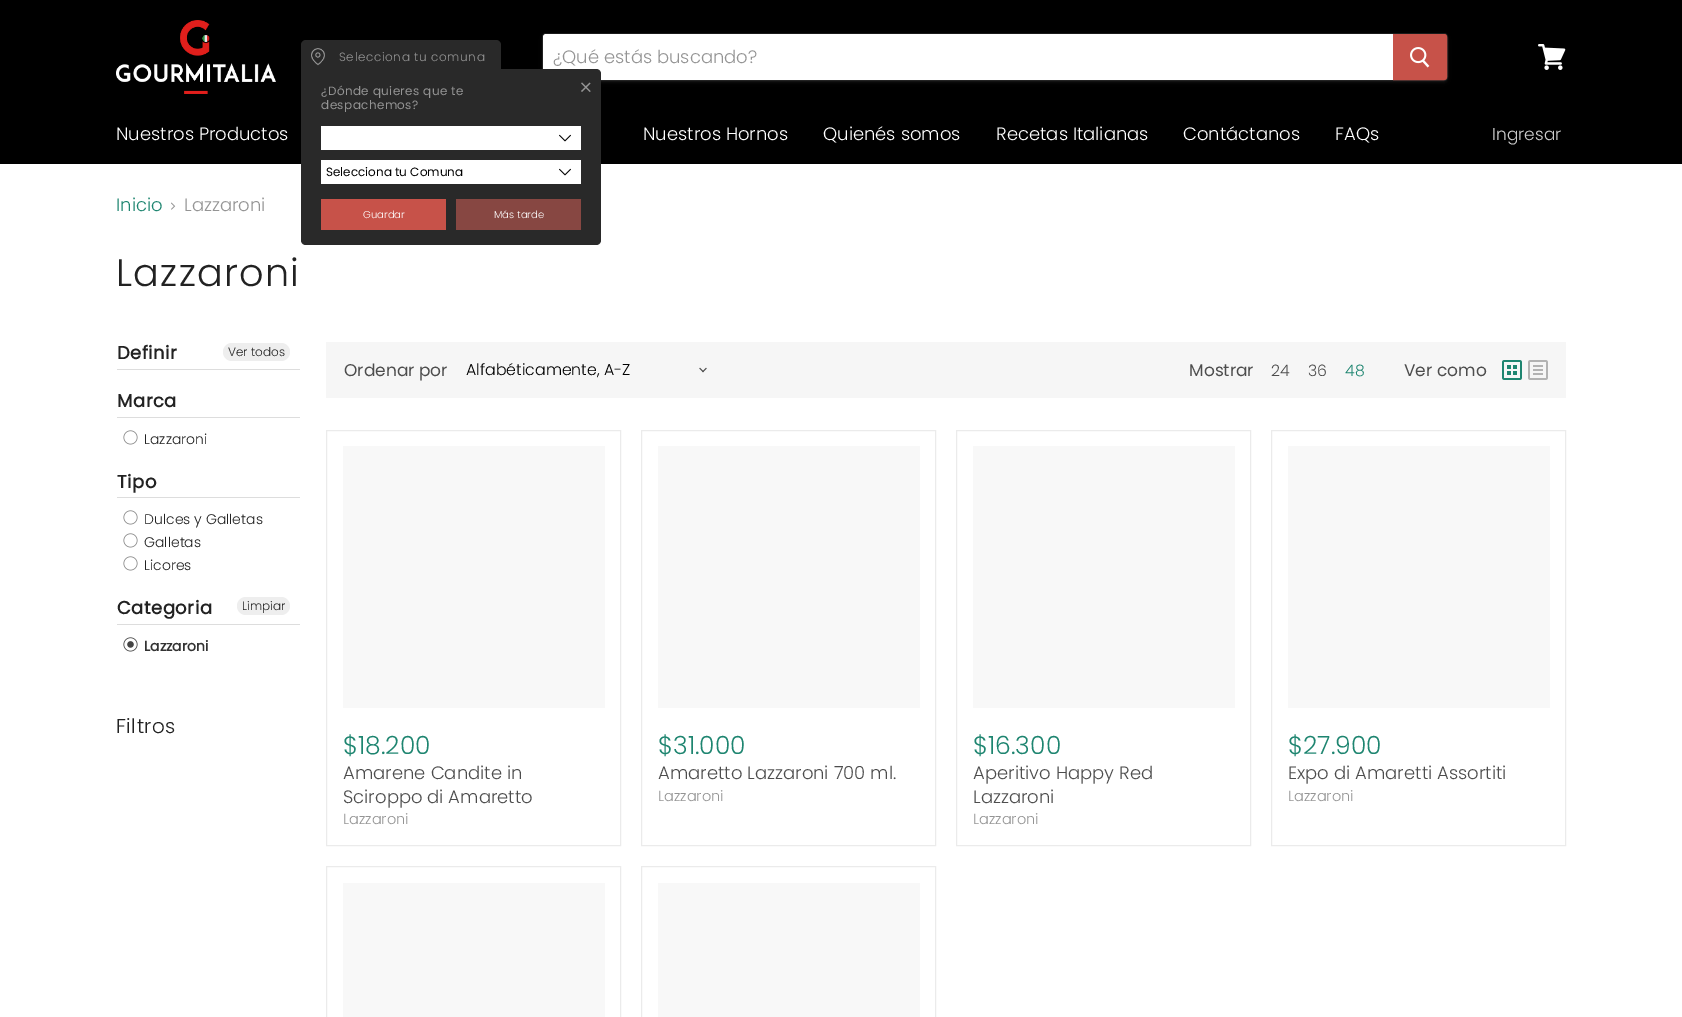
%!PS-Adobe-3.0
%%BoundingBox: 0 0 1682 1017
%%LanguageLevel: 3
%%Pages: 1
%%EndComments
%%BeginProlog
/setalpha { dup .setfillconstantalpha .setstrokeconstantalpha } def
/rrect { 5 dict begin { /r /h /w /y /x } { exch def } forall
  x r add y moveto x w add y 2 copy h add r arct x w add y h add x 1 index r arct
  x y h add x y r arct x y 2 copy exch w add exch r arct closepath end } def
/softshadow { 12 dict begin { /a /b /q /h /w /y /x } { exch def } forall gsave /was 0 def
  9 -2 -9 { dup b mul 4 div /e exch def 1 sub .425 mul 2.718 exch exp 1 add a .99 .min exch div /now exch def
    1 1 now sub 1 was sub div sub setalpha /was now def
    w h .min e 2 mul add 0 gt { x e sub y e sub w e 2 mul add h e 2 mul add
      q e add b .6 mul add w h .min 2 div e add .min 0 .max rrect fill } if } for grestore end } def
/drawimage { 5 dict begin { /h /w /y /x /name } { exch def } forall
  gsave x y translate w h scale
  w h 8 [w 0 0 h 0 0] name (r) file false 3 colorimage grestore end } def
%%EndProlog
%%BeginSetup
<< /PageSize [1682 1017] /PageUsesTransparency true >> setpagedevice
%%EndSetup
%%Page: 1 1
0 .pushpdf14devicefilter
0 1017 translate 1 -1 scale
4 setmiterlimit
1 setgray
0 0 1682 1017 rectfill
0 setgray
0 0 1682 164 rectfill
(images/1.raw) 116 20 160 74 drawimage
0.161 setgray
301 40 200 34 5 rrect fill
(images/2.raw) 311 48 14 18 drawimage
0.502 setgray
542 35 906 48 4 1.5 0.11 softshadow
0.2 setalpha
542.5 33.5 905 47 3.5 rrect stroke
1 setalpha
1 setgray
newpath 546 34 moveto 1393 34 lineto 1393 80 lineto 546 80 lineto 544.5 80 543 78.5 543 77 curveto 543 37 lineto 543 35.5 544.5 34 546 34 curveto closepath fill
0.161 setgray
newpath 301 69 moveto 596 69 lineto 599 69 601 71 601 74 curveto 601 240 lineto 601 243 599 245 596 245 curveto 306 245 lineto 303 245 301 243 301 240 curveto closepath fill
1 setgray
321 126 260 24 rectfill
(images/3.raw) 559 134 12 8 drawimage
321 160 260 24 rectfill
(images/3.raw) 559 168 12 8 drawimage
0.78 0.322 0.286 setrgbcolor
321 199 125 31 rectfill
0.529 0.278 0.259 setrgbcolor
456 199 125 31 rectfill
0.78 0.322 0.286 setrgbcolor
newpath 1393.5 34.5 moveto 1444 34.5 lineto 1445.5 34.5 1446.5 35.5 1446.5 37 curveto 1446.5 77 lineto 1446.5 78.5 1445.5 79.5 1444 79.5 curveto 1393.5 79.5 lineto closepath gsave fill grestore
stroke
(images/4.raw) 1410 47 20 21 drawimage
(images/5.raw) 1538 44 28 26 drawimage
(images/6.raw) 171 202 5 8 drawimage
0.867 setgray
117 369 183 1 rectfill
0.933 setgray
223 343 67 18 9 rrect fill
0.867 setgray
117 417 183 1 rectfill
(images/7.raw) 123 430 15 15 drawimage
117 497 183 1 rectfill
(images/7.raw) 123 510 15 15 drawimage
(images/7.raw) 123 533 15 15 drawimage
(images/7.raw) 123 556 15 15 drawimage
117 624 183 1 rectfill
0.933 setgray
237 597 53 18 9 rrect fill
(images/8.raw) 123 637 15 15 drawimage
0.965 setgray
326 342 1240 56 rectfill
(images/9.raw) 699 367 8 6 drawimage
(images/10.raw) 1502 360 20 20 drawimage
(images/11.raw) 1528 360 20 20 drawimage
0.922 setgray
326.5 430.5 294 415 rectstroke
0.973 setgray
343 446 262 262 rectfill
0.922 setgray
641.5 430.5 294 415 rectstroke
0.973 setgray
658 446 262 262 rectfill
0.922 setgray
956.5 430.5 294 415 rectstroke
0.973 setgray
973 446 262 262 rectfill
0.922 setgray
1271.5 430.5 294 415 rectstroke
0.973 setgray
1288 446 262 262 rectfill
0.922 setgray
326.5 866.5 294 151 rectstroke
0.973 setgray
343 883 262 134 rectfill
0.922 setgray
641.5 866.5 294 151 rectstroke
0.973 setgray
658 883 262 134 rectfill
/Poppins-Light [12 0 0 -12 0 0] selectfont
0.58 setgray
339 61 moveto 0.6 0 (Selecciona tu comuna) ashow
/Poppins-Regular [12 0 0 -12 0 0] selectfont
321 95 moveto 0.4 0 (¿Dónde quieres que te) ashow
321 109 moveto 0.4 0 (despachemos?) ashow
/Poppins-Light [24 0 0 -24 0 0] selectfont
gsave 574 88 translate 45 rotate 0 0 moveto (+) show grestore
/Poppins-Regular [12 0 0 -12 0 0] selectfont
0 setgray
326 176 moveto (Selecciona tu Comuna) show
/Poppins-Light [10 0 0 -10 0 0] selectfont
1 setgray
363 218 moveto (Guardar) show
494 218 moveto (Más tarde) show
/Poppins-Light [18 0 0 -18 0 0] selectfont
0.58 setgray
553 63 moveto (¿Qué estás buscando?) show
1 setgray
116 140 moveto (Nuestros Productos) show
643 140 moveto (Nuestros Hornos) show
823 140 moveto (Quienés somos) show
996 140 moveto (Recetas Italianas) show
1183 140 moveto (Contáctanos) show
1335 140 moveto (FAQs) show
/Poppins-Light [17 0 0 -17 0 0] selectfont
0.8 setgray
1492 140 moveto (Ingresar) show
/Poppins-Light [18 0 0 -18 0 0] selectfont
0.118 0.522 0.439 setrgbcolor
116 211 moveto (Inicio) show
0.58 setgray
184 211 moveto (Lazzaroni) show
/Poppins-Light [38.25 0 0 -38.25 0 0] selectfont
0.133 setgray
116 286 moveto 1.25 0 (Lazzaroni) ashow
/Poppins-Bold [18 0 0 -18 0 0] selectfont
117 359 moveto 0.5 0 (Definir) ashow
/Poppins-Light [12 0 0 -12 0 0] selectfont
228 356 moveto (Ver todos) show
/Poppins-Bold [18 0 0 -18 0 0] selectfont
117 407 moveto 0.5 0 (Marca) ashow
/Poppins-Light [14 0 0 -14 0 0] selectfont
144 444 moveto (Lazzaroni) show
/Poppins-Bold [18 0 0 -18 0 0] selectfont
117 488 moveto 0.5 0 (Tipo) ashow
/Poppins-Light [14 0 0 -14 0 0] selectfont
144 524 moveto (Dulces y Galletas) show
144 547 moveto (Galletas) show
144 570 moveto (Licores) show
/Poppins-Bold [18 0 0 -18 0 0] selectfont
117 614 moveto 0.5 0 (Categoria) ashow
/Poppins-Light [12 0 0 -12 0 0] selectfont
242 610 moveto (Limpiar) show
/Poppins-Bold [14 0 0 -14 0 0] selectfont
0.2 setgray
144 651 moveto (Lazzaroni) show
/Poppins-Light [20 0 0 -20 0 0] selectfont
0.133 setgray
116 733 moveto 0.5 0 (Filtros) ashow
/Poppins-Regular [17 0 0 -17 0 0] selectfont
0.302 setgray
344 376 moveto (Ordenar por) show
/Poppins-Light [15.75 0 0 -15.75 0 0] selectfont
0 setgray
466 375 moveto (Alfabéticamente, A-Z) show
/Poppins-Regular [17 0 0 -17 0 0] selectfont
0.302 setgray
1189 376 moveto (Mostrar) show
/Poppins-Light [15.75 0 0 -15.75 0 0] selectfont
1271 376 moveto (24) show
1308 376 moveto (36) show
0.118 0.522 0.439 setrgbcolor
1345 376 moveto (48) show
/Poppins-Regular [17 0 0 -17 0 0] selectfont
0.302 setgray
1404 376 moveto (Ver como) show
/Poppins-Light [25 0 0 -25 0 0] selectfont
0.118 0.522 0.439 setrgbcolor
343 754 moveto ($18.200) show
/Poppins-Light [18 0 0 -18 0 0] selectfont
0.302 setgray
343 779 moveto (Amarene Candite in) show
343 803 moveto (Sciroppo di Amaretto) show
/Poppins-Light [14.5 0 0 -14.5 0 0] selectfont
0.58 setgray
343 824 moveto (Lazzaroni) show
/Poppins-Light [25 0 0 -25 0 0] selectfont
0.118 0.522 0.439 setrgbcolor
658 754 moveto ($31.000) show
/Poppins-Light [18 0 0 -18 0 0] selectfont
0.302 setgray
658 779 moveto (Amaretto Lazzaroni 700 ml.) show
/Poppins-Light [14.5 0 0 -14.5 0 0] selectfont
0.58 setgray
658 801 moveto (Lazzaroni) show
/Poppins-Light [25 0 0 -25 0 0] selectfont
0.118 0.522 0.439 setrgbcolor
973 754 moveto ($16.300) show
/Poppins-Light [18 0 0 -18 0 0] selectfont
0.302 setgray
973 779 moveto (Aperitivo Happy Red) show
973 803 moveto (Lazzaroni) show
/Poppins-Light [14.5 0 0 -14.5 0 0] selectfont
0.58 setgray
973 824 moveto (Lazzaroni) show
/Poppins-Light [25 0 0 -25 0 0] selectfont
0.118 0.522 0.439 setrgbcolor
1288 754 moveto ($27.900) show
/Poppins-Light [18 0 0 -18 0 0] selectfont
0.302 setgray
1288 779 moveto (Expo di Amaretti Assortiti) show
/Poppins-Light [14.5 0 0 -14.5 0 0] selectfont
0.58 setgray
1288 801 moveto (Lazzaroni) show
.poppdf14devicefilter showpage
%%EOF
